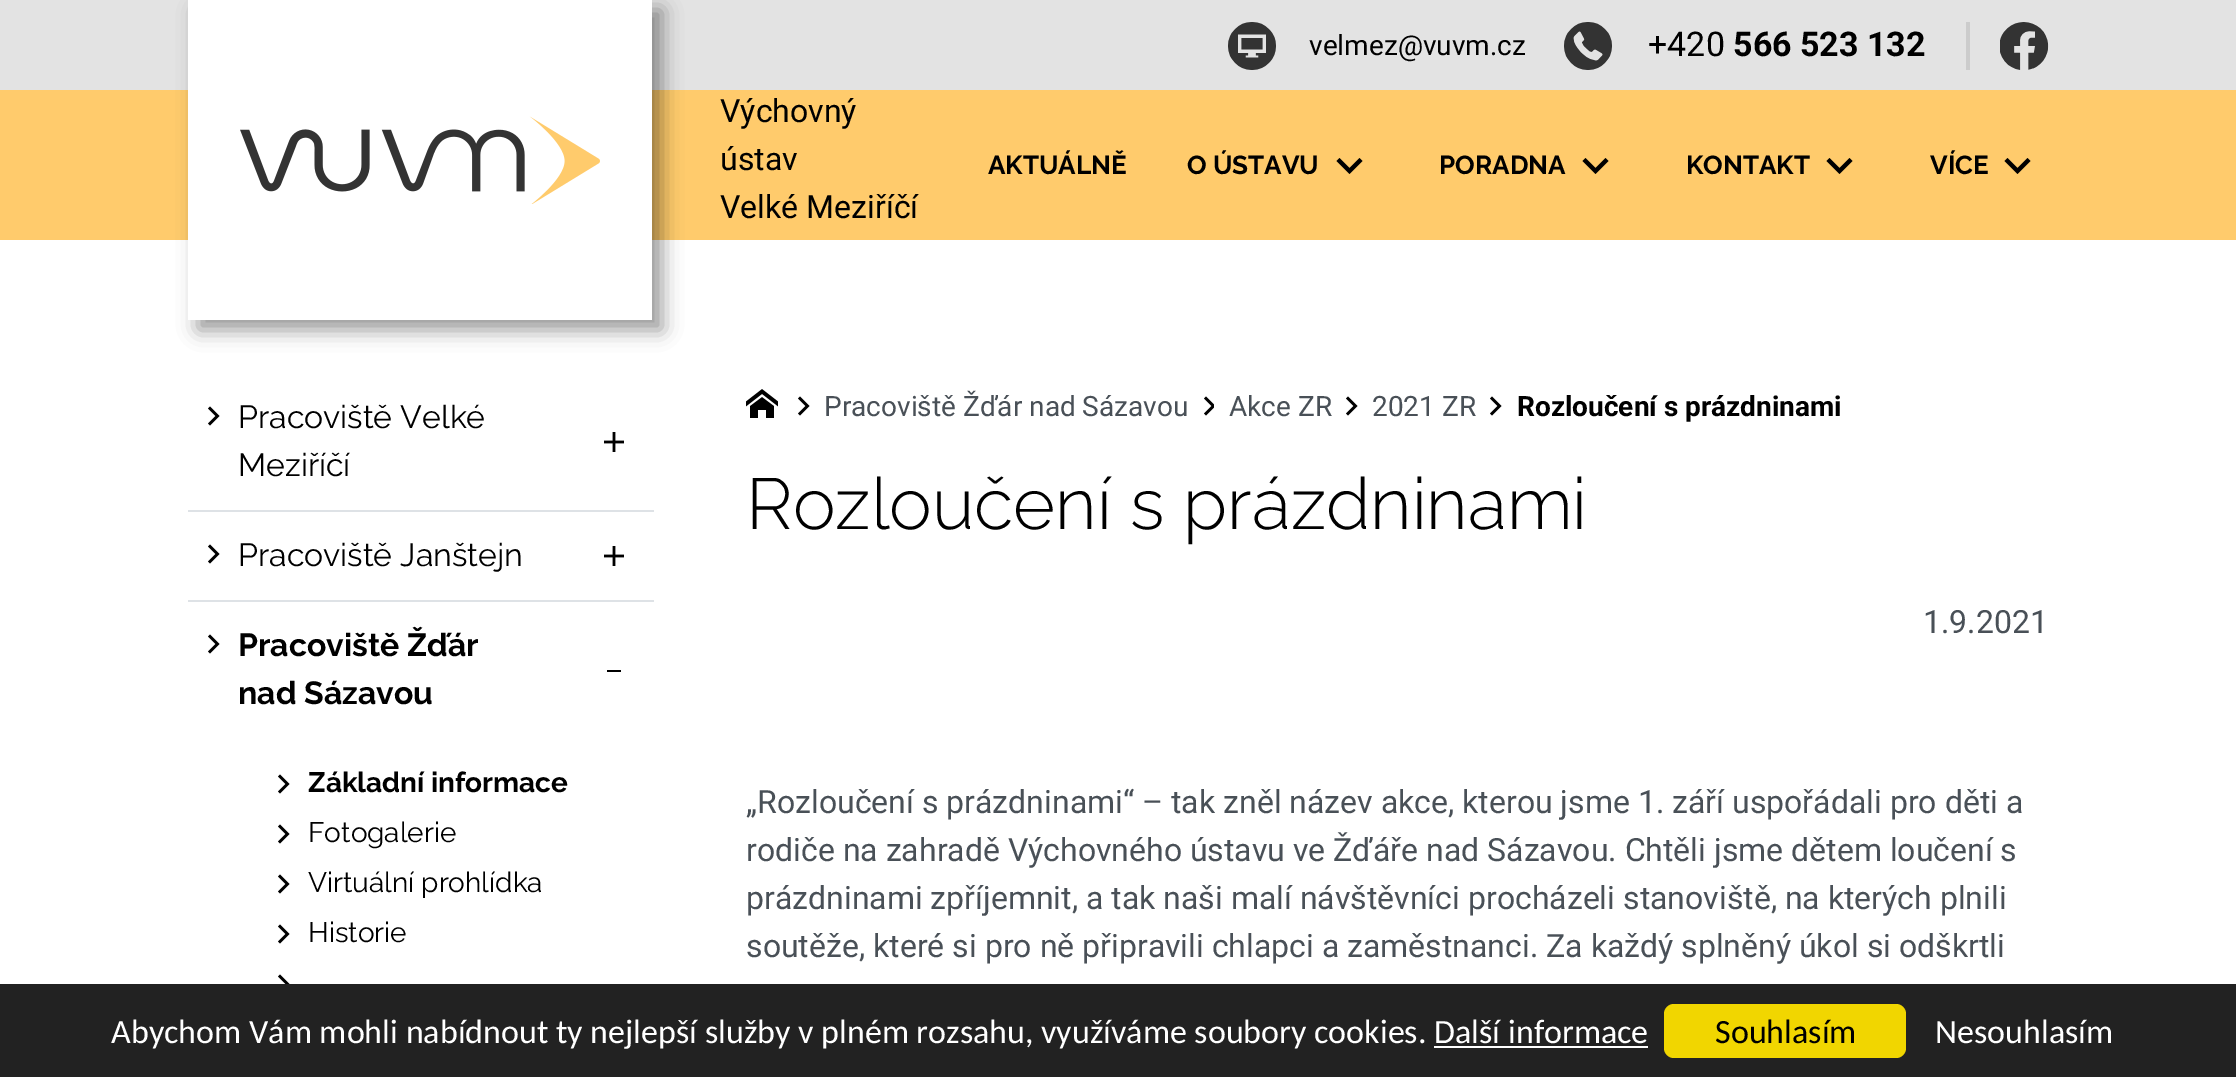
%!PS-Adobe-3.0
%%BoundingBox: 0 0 2236 1077
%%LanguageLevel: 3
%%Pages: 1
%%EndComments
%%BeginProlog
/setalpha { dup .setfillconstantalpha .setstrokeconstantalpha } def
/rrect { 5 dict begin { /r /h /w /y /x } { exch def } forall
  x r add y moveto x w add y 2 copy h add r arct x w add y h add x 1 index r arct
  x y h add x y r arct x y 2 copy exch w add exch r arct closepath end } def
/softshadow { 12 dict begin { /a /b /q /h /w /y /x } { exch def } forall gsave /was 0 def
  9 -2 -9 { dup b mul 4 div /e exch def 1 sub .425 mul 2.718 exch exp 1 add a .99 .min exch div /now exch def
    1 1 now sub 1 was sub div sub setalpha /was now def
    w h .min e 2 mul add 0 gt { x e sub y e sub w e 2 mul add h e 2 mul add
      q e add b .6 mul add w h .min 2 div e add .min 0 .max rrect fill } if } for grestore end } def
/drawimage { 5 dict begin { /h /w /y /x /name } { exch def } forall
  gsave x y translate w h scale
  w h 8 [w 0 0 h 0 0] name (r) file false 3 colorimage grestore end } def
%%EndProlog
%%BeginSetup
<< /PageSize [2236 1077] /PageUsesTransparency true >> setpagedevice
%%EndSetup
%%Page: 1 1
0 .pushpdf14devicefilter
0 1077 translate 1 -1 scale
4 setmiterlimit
1 setgray
0 0 2236 1077 rectfill
0.89 setgray
0 0 2236 90 rectfill
1 0.796 0.424 setrgbcolor
0 90 2236 150 rectfill
0 setgray
198 10 464 320 0 10 0.4 softshadow
1 setgray
188 0 464 320 rectfill
(images/1.raw) 240 116 360 88 drawimage
(images/2.raw) 1228 22 48 48 drawimage
(images/3.raw) 1564 22 48 48 drawimage
0.8 setgray
1966 22 4 48 rectfill
(images/4.raw) 2000 22 49 48 drawimage
0 setgray
newpath 1339.5 158 moveto 1349.5 168 lineto 1359.5 158 lineto 1362.5 161 lineto 1349.5 174 lineto 1336.5 161 lineto closepath fill
newpath 1585.5 158 moveto 1595.5 168 lineto 1605.5 158 lineto 1608.5 161 lineto 1595.5 174 lineto 1582.5 161 lineto closepath fill
newpath 1829.5 158 moveto 1839.5 168 lineto 1849.5 158 lineto 1852.5 161 lineto 1839.5 174 lineto 1826.5 161 lineto closepath fill
newpath 2007.5 158 moveto 2017.5 168 lineto 2027.5 158 lineto 2030.5 161 lineto 2017.5 174 lineto 2004.5 161 lineto closepath fill
newpath 215.5 416 moveto 208 408.5 lineto 210 406.5 lineto 219.5 416 lineto 210 425.5 lineto 208 423.5 lineto closepath fill
(images/5.raw) 604 432 20 20 drawimage
0.871 0.886 0.902 setrgbcolor
188 510 466 2 rectfill
0 setgray
newpath 215.5 554 moveto 208 546.5 lineto 210 544.5 lineto 219.5 554 lineto 210 563.5 lineto 208 561.5 lineto closepath fill
(images/5.raw) 604 546 20 20 drawimage
0.871 0.886 0.902 setrgbcolor
188 600 466 2 rectfill
0 setgray
newpath 215.5 644 moveto 208 636.5 lineto 210 634.5 lineto 219.5 644 lineto 210 653.5 lineto 208 651.5 lineto closepath fill
607 670 14 2 rectfill
newpath 285.5 784 moveto 278 776.5 lineto 280 774.5 lineto 289.5 784 lineto 280 793.5 lineto 278 791.5 lineto closepath fill
newpath 285.5 834 moveto 278 826.5 lineto 280 824.5 lineto 289.5 834 lineto 280 843.5 lineto 278 841.5 lineto closepath fill
newpath 285.5 884 moveto 278 876.5 lineto 280 874.5 lineto 289.5 884 lineto 280 893.5 lineto 278 891.5 lineto closepath fill
newpath 285.5 934 moveto 278 926.5 lineto 280 924.5 lineto 289.5 934 lineto 280 943.5 lineto 278 941.5 lineto closepath fill
newpath 285.5 984 moveto 278 976.5 lineto 280 974.5 lineto 289.5 984 lineto 280 993.5 lineto 278 991.5 lineto closepath fill
(images/6.raw) 746 389 32 29 drawimage
newpath 805.5 406 moveto 798 398.5 lineto 800 396.5 lineto 809.5 406 lineto 800 415.5 lineto 798 413.5 lineto closepath fill
gsave
1204 396 10 20 rectclip
newpath 1211.5 406 moveto 1204 398.5 lineto 1206 396.5 lineto 1215.5 406 lineto 1206 415.5 lineto 1204 413.5 lineto closepath fill
grestore
newpath 1353.5 406 moveto 1346 398.5 lineto 1348 396.5 lineto 1357.5 406 lineto 1348 415.5 lineto 1346 413.5 lineto closepath fill
newpath 1497.5 406 moveto 1490 398.5 lineto 1492 396.5 lineto 1501.5 406 lineto 1492 415.5 lineto 1490 413.5 lineto closepath fill
0.133 setgray
0 984 2236 93 rectfill
0.945 0.839 0 setrgbcolor
1664 1004 242 54 10 rrect fill
1 setgray
1434 1046 214 2 rectfill
/Roboto-Regular [32 0 0 -32 0 0] selectfont
0 setgray
720 122 moveto (Výchovný) show
720 170 moveto (ústav) show
720 218 moveto (Velké Meziříčí) show
/Roboto-Regular [28 0 0 -28 0 0] selectfont
1309 55 moveto (velmez@vuvm.cz) show
/Roboto-Regular [34 0 0 -34 0 0] selectfont
1648 56 moveto (+420) show
/Roboto-Bold [34 0 0 -34 0 0] selectfont
1733 56 moveto (566 523 132) show
/Raleway-Bold [26 0 0 -26 0 0] selectfont
988 174 moveto (AKTUÁLNĚ) show
1187 174 moveto (O ÚSTAVU) show
1439 174 moveto (PORADNA) show
1686 174 moveto (KONTAKT) show
1930 174 moveto (VÍCE) show
/Raleway-Regular [32 0 0 -32 0 0] selectfont
238 428 moveto (Pracoviště Velké) show
238 476 moveto (Meziříčí) show
238 566 moveto (Pracoviště Janštejn) show
/Raleway-Bold [32 0 0 -32 0 0] selectfont
238 656 moveto (Pracoviště Žďár) show
238 704 moveto (nad Sázavou) show
/Raleway-Bold [28 0 0 -28 0 0] selectfont
308 792 moveto (Základní informace) show
/Raleway-Regular [28 0 0 -28 0 0] selectfont
308 842 moveto (Fotogalerie) show
308 892 moveto (Virtuální prohlídka) show
308 942 moveto (Historie) show
/Roboto-Regular [28 0 0 -28 0 0] selectfont
0.286 0.314 0.341 setrgbcolor
824 416 moveto (Pracoviště Žďár nad Sázavou) show
1229 416 moveto (Akce ZR) show
1372 416 moveto (2021 ZR) show
/Roboto-Bold [28 0 0 -28 0 0] selectfont
0 setgray
1517 416 moveto (Rozloučení s prázdninami) show
/Raleway-Light [72 0 0 -72 0 0] selectfont
746 529 moveto (Rozloučení s prázdninami) show
/Roboto-Regular [32 0 0 -32 0 0] selectfont
0.286 0.314 0.341 setrgbcolor
1923 633 moveto (1.9.2021) show
746 813 moveto („Rozloučení s prázdninami“ – tak zněl název akce, kterou jsme 1. září uspořádali pro děti a) show
746 861 moveto (rodiče na zahradě Výchovného ústavu ve Žďáře nad Sázavou. Chtěli jsme dětem loučení s) show
746 909 moveto (prázdninami zpříjemnit, a tak naši malí návštěvníci procházeli stanoviště, na kterých plnili) show
746 957 moveto (soutěže, které si pro ně připravili chlapci a zaměstnanci. Za každý splněný úkol si odškrtli) show
/Carlito-Regular [34 0 0 -34 0 0] selectfont
1 setgray
111 1043 moveto (Abychom Vám mohli nabídnout ty nejlepší služby v plném rozsahu, využíváme soubory cookies. Další informace) show
0 setgray
1715 1043 moveto (Souhlasím) show
1 setgray
1935 1043 moveto (Nesouhlasím) show
.poppdf14devicefilter showpage
%%EOF
